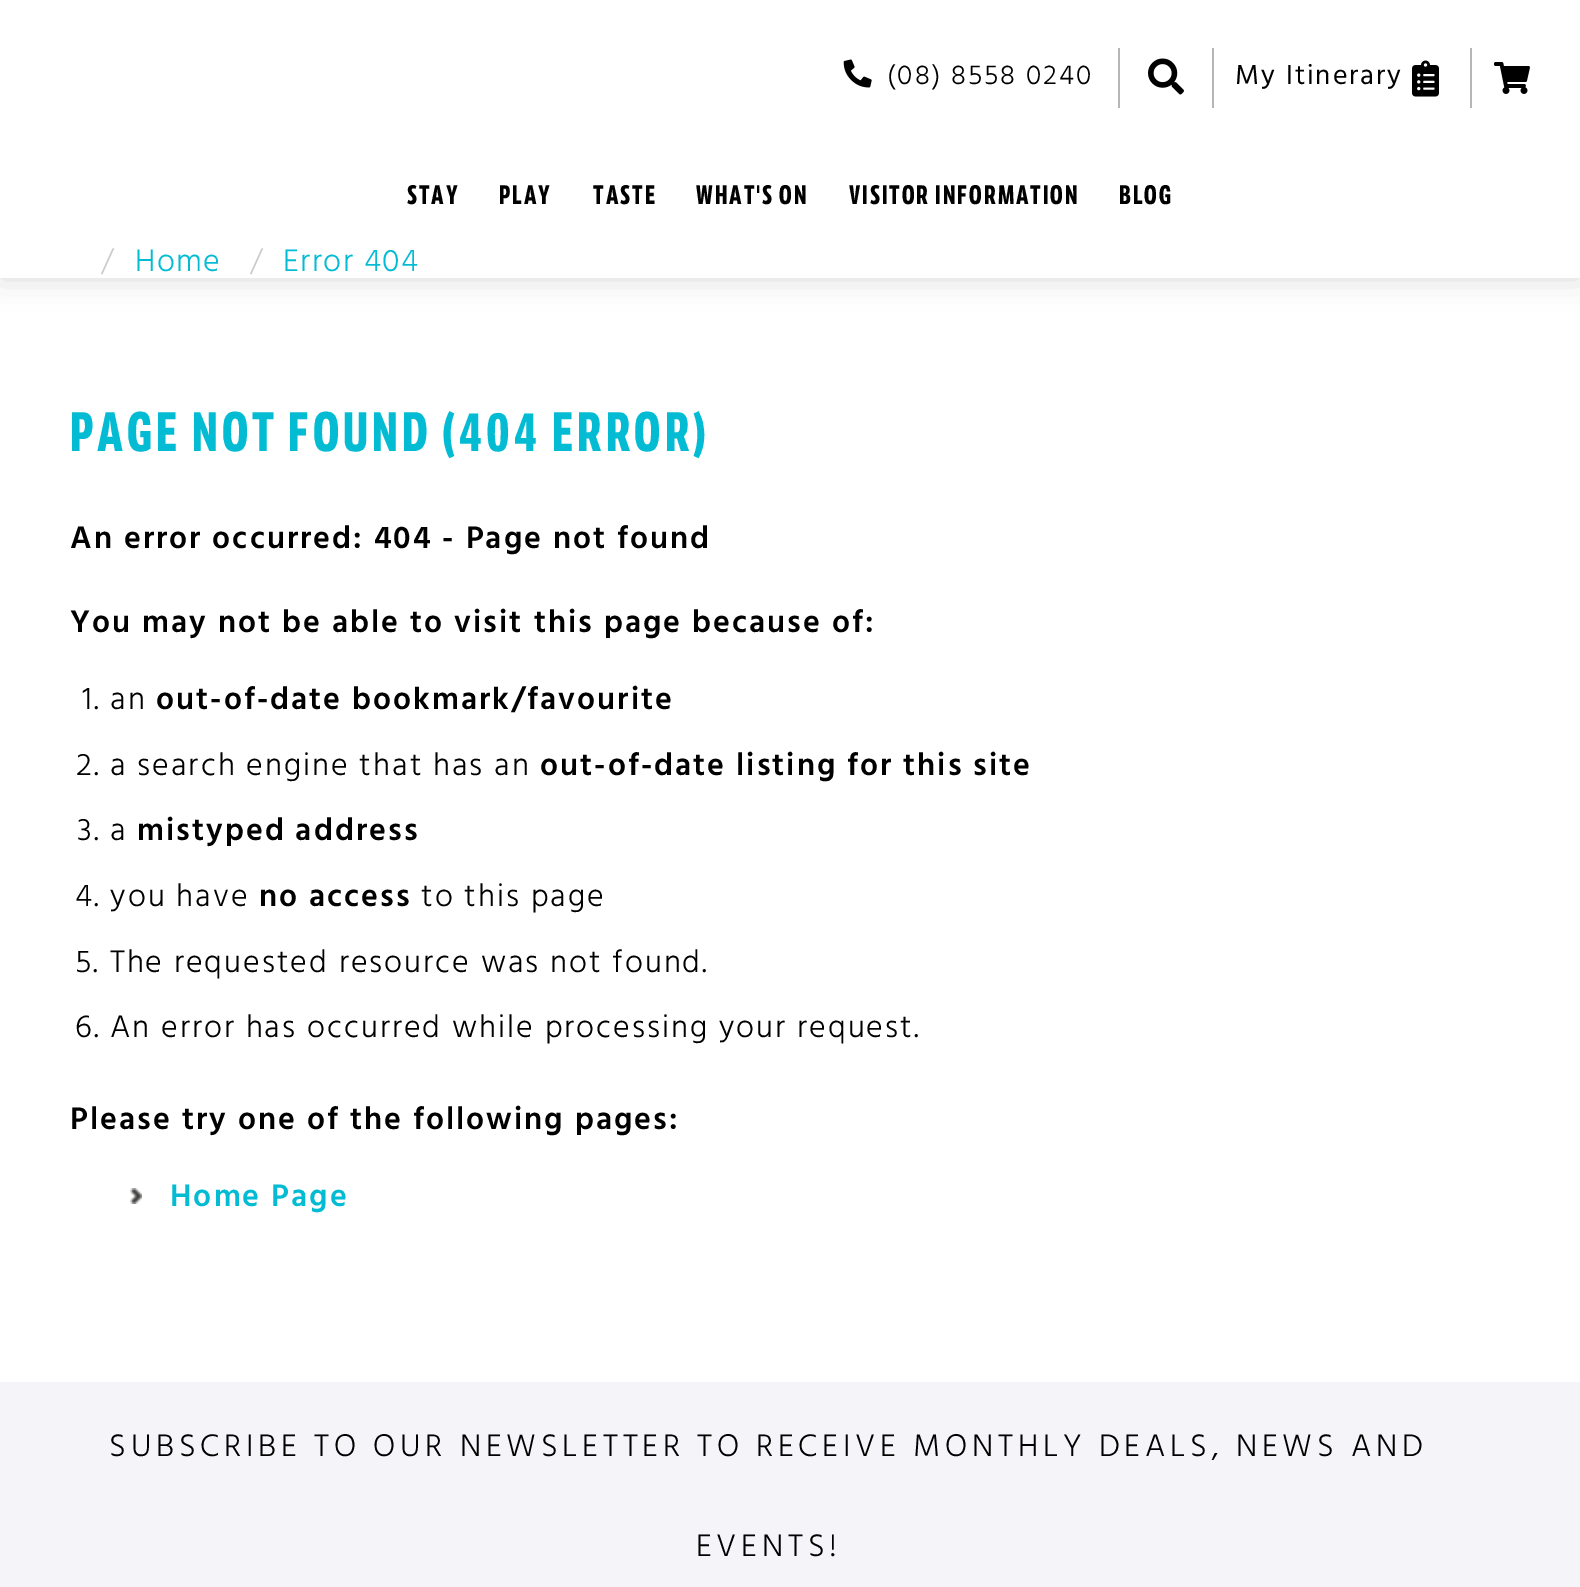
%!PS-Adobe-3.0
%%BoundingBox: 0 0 1580 1587
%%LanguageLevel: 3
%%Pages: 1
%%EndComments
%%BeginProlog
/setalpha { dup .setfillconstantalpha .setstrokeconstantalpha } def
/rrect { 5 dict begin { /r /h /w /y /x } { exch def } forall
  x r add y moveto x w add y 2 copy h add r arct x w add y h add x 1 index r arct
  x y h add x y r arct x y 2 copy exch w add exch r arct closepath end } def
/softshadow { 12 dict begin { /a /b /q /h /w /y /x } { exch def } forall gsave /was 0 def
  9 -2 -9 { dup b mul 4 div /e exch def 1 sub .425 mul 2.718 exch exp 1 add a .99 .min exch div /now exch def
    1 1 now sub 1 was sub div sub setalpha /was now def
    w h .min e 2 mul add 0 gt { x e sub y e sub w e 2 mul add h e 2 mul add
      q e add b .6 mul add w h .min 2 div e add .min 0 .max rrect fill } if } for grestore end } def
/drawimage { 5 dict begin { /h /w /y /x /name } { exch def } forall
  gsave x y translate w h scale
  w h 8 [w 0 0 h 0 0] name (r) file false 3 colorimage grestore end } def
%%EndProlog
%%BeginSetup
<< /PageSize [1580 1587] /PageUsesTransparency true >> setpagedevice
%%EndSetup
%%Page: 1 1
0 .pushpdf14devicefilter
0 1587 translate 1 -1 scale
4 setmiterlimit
1 setgray
0 0 1580 1587 rectfill
0 setgray
0 0 1580 278 0 15 0.15 softshadow
1 setgray
0 0 1580 278 rectfill
(images/1.raw) 843 59 29 29 drawimage
0.702 0.718 0.729 setrgbcolor
1118 48 2 60 rectfill
(images/2.raw) 1148 58 36 37 drawimage
1212 48 2 60 rectfill
(images/3.raw) 1412 60 27 37 drawimage
1470 48 2 60 rectfill
(images/4.raw) 1494 62 36 32 drawimage
(images/5.raw) 130 1188 12 16 drawimage
0.961 0.961 0.976 setrgbcolor
0 1382 1580 205 rectfill
/Hind-Light [28 0 0 -28 0 0] selectfont
0 setgray
887 84 moveto 2 0 (\(08\) 8558 0240) ashow
/Hind-Regular [28 0 0 -28 0 0] selectfont
1235 84 moveto 2 0 (My Itinerary) ashow
/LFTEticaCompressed-Bold [26 0 0 -26 0 0] selectfont
407 204 moveto 2 0 (STAY) ashow
499 204 moveto 2 0 (PLAY) ashow
593 204 moveto 2 0 (TASTE) ashow
696 204 moveto 2 0 (WHAT'S ON) ashow
849 204 moveto 2 0 (VISITOR INFORMATION) ashow
1119 204 moveto 2 0 (BLOG) ashow
/Hind-Light [32 0 0 -32 0 0] selectfont
0.8 setgray
101 271 moveto 1.5 0 (/) ashow
0.012 0.733 0.824 setrgbcolor
135 271 moveto 1.5 0 (Home) ashow
0.8 setgray
250 271 moveto 1.5 0 (/) ashow
0.012 0.733 0.824 setrgbcolor
283 271 moveto 1.5 0 (Error 404) ashow
/LFTEticaCompressed-Bold [54 0 0 -54 0 0] selectfont
70 451 moveto 4 0 (PAGE NOT FOUND \(404 ERROR\)) ashow
/Hind-SemiBold [32 0 0 -32 0 0] selectfont
0 setgray
70 548 moveto 2 0 (An error occurred: 404 - Page not found) ashow
70 632 moveto 2 0 (You may not be able to visit this page because of:) ashow
/Hind-Light [32 0 0 -32 0 0] selectfont
82 709 moveto 2 0 (1. an) ashow
/Hind-SemiBold [32 0 0 -32 0 0] selectfont
156 709 moveto 2 0 (out-of-date bookmark/favourite) ashow
/Hind-Light [32 0 0 -32 0 0] selectfont
76 775 moveto 2 0 (2. a search engine that has an) ashow
/Hind-SemiBold [32 0 0 -32 0 0] selectfont
540 775 moveto 2 0 (out-of-date listing for this site) ashow
/Hind-Light [32 0 0 -32 0 0] selectfont
77 840 moveto 2 0 (3. a) ashow
/Hind-SemiBold [32 0 0 -32 0 0] selectfont
137 840 moveto 2 0 (mistyped address) ashow
/Hind-Light [32 0 0 -32 0 0] selectfont
75 906 moveto 2 0 (4. you have) ashow
/Hind-SemiBold [32 0 0 -32 0 0] selectfont
259 906 moveto 2 0 (no access) ashow
/Hind-Light [32 0 0 -32 0 0] selectfont
421 906 moveto 2 0 (to this page) ashow
75 972 moveto 2 0 (5. The requested resource was not found.) ashow
75 1037 moveto 2 0 (6. An error has occurred while processing your request.) ashow
/Hind-SemiBold [32 0 0 -32 0 0] selectfont
70 1129 moveto 2 0 (Please try one of the following pages:) ashow
0.012 0.733 0.824 setrgbcolor
170 1206 moveto 2 0 (Home Page) ashow
/Hind-Light [32 0 0 -32 0 0] selectfont
0 setgray
109 1456 moveto 4.8 0 (SUBSCRIBE TO OUR NEWSLETTER TO RECEIVE MONTHLY DEALS, NEWS AND) ashow
696 1556 moveto 4.8 0 (EVENTS!) ashow
.poppdf14devicefilter showpage
%%EOF
